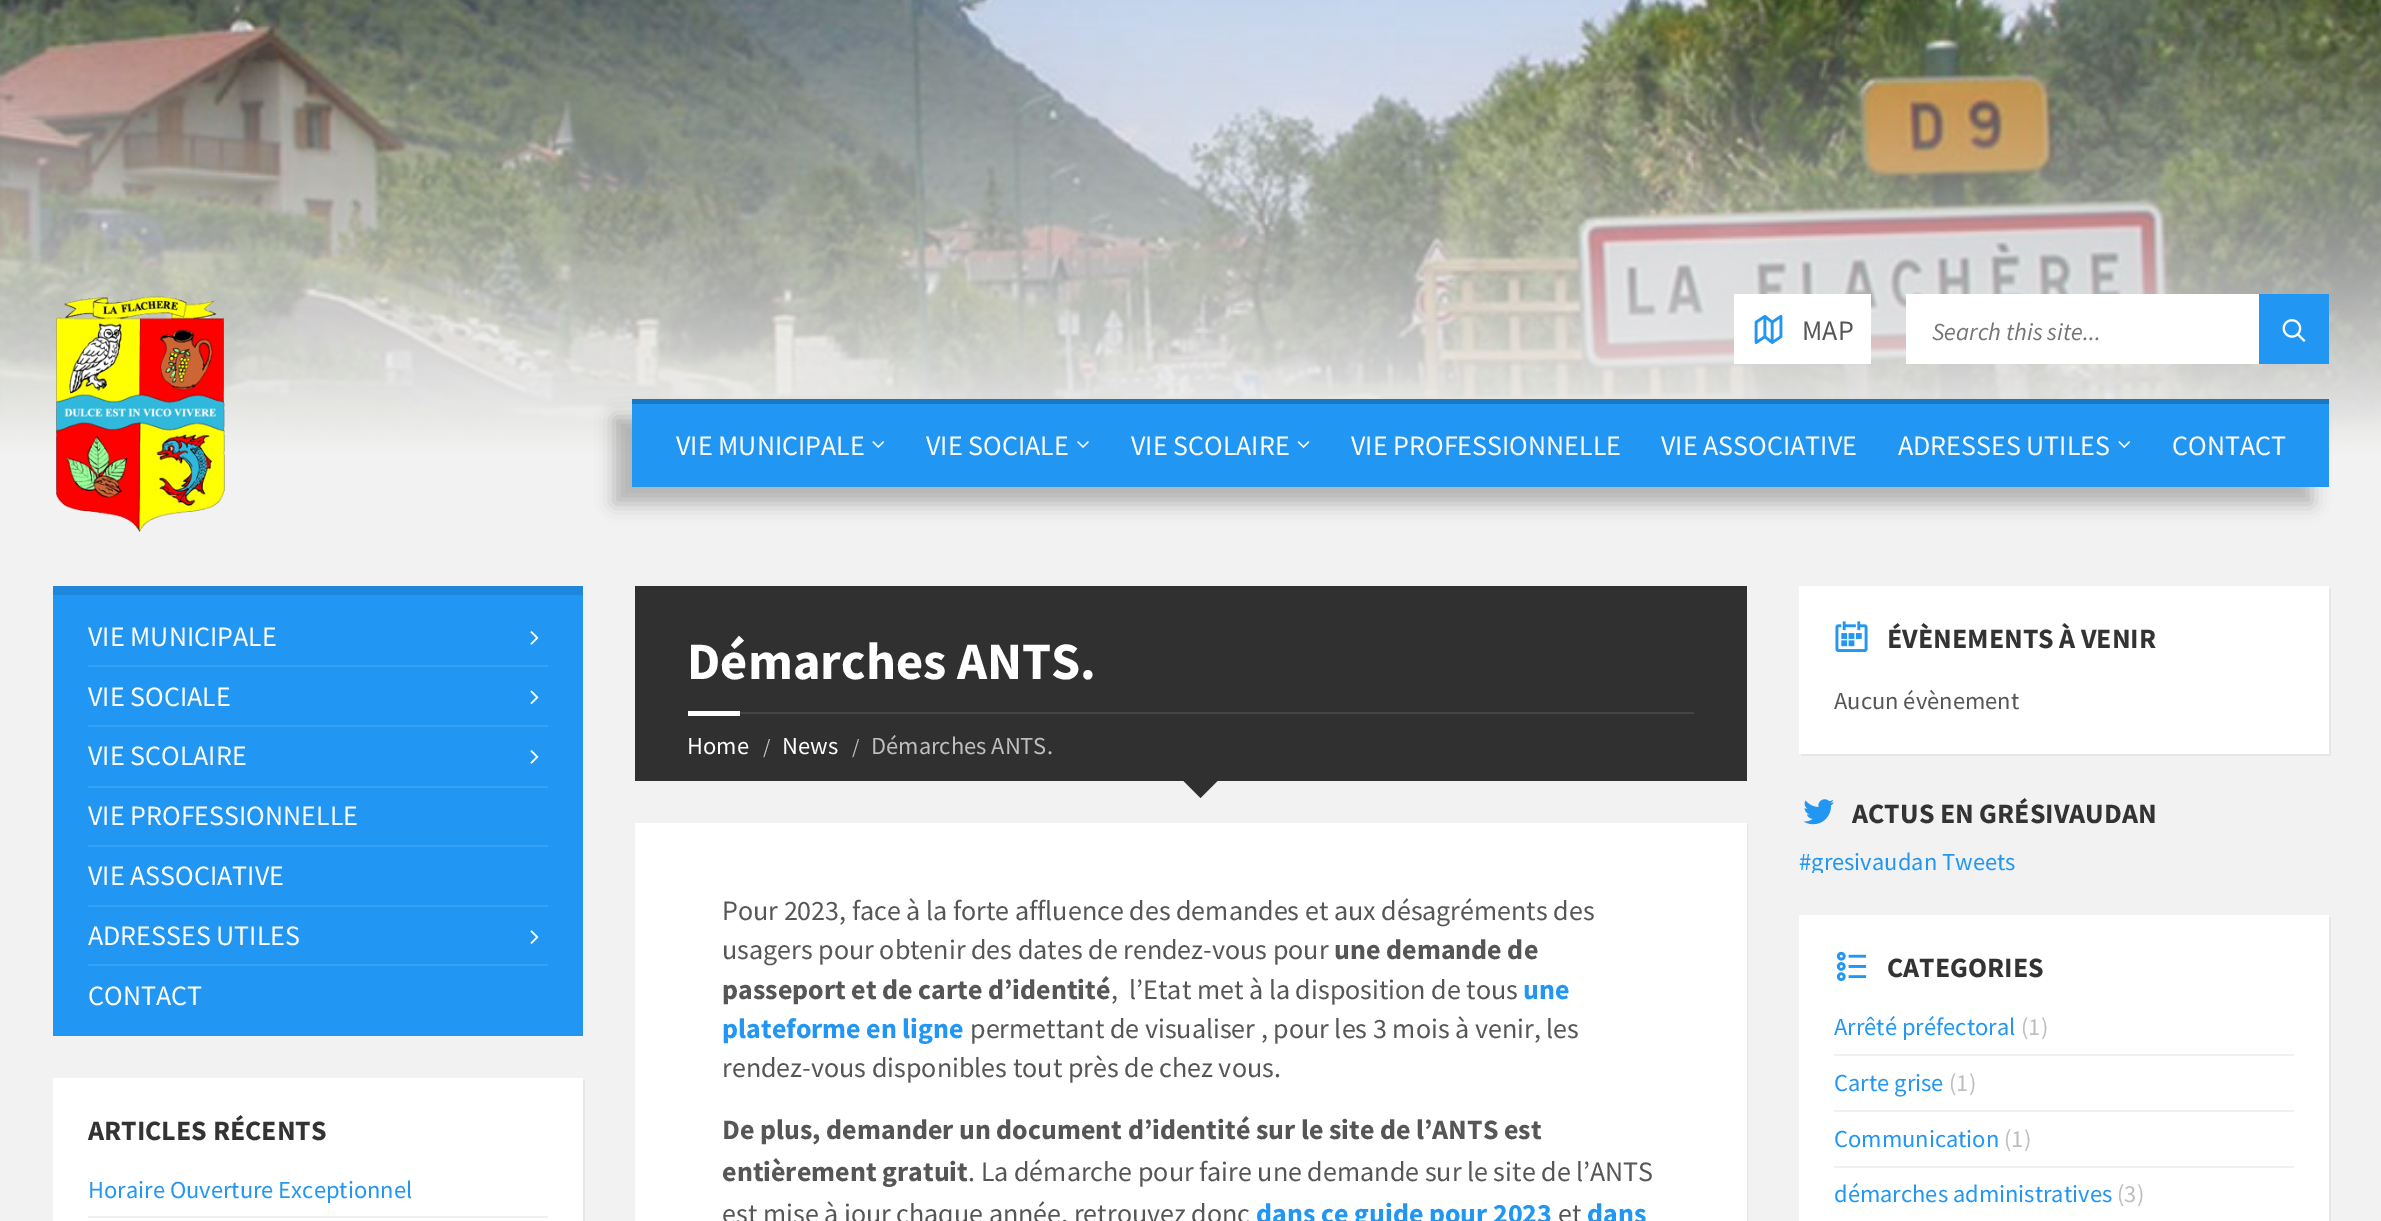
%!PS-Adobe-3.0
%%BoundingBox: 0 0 2381 1221
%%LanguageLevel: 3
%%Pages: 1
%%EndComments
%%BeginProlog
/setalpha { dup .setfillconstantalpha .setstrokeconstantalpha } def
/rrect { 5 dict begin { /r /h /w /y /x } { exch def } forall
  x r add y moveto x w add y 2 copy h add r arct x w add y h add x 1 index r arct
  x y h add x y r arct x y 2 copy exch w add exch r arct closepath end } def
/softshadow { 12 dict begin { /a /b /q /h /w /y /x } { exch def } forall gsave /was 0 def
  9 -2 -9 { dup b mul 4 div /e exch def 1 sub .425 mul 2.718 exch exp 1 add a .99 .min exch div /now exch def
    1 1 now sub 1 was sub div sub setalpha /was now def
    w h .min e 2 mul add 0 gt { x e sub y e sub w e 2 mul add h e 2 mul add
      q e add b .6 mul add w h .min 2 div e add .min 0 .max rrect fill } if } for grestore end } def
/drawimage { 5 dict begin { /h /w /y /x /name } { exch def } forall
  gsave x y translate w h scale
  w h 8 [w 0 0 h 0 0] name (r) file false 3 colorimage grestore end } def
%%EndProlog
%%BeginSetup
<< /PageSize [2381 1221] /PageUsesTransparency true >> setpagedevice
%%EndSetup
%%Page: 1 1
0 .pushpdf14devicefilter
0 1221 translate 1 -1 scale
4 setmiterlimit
0.949 setgray
0 0 2381 1221 rectfill
(images/1.raw) 0 0 2381 455 drawimage
(images/2.raw) 55 296 170 236 drawimage
1 setgray
1734 294 137 70 rectfill
(images/3.raw) 1754 314 29 30 drawimage
1906 294 353 70 rectfill
0.129 0.588 0.953 setrgbcolor
2259 294 70 70 rectfill
(images/4.raw) 2282 319 24 23 drawimage
0 setgray
614 417 1698 87 0 9 0.25 softshadow
0.129 0.588 0.953 setrgbcolor
632 404 1697 83 rectfill
0.102 0.471 0.761 setrgbcolor
632 399 1697 5 rectfill
(images/5.raw) 872 441 12 7 drawimage
(images/6.raw) 1077 441 12 7 drawimage
(images/7.raw) 1297 441 13 7 drawimage
(images/5.raw) 2118 441 12 7 drawimage
0.129 0.588 0.953 setrgbcolor
53 595 530 441 rectfill
0.118 0.529 0.859 setrgbcolor
53 586 530 9 rectfill
(images/8.raw) 530 631 9 14 drawimage
0.216 0.631 0.957 setrgbcolor
88 665 460 2 rectfill
(images/9.raw) 530 690 9 15 drawimage
88 725 460 2 rectfill
(images/8.raw) 530 750 9 14 drawimage
88 786 460 2 rectfill
88 845 460 2 rectfill
88 905 460 2 rectfill
(images/10.raw) 530 930 9 14 drawimage
88 964 460 2 rectfill
0.902 setgray
newpath 54 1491 moveto 54 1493 lineto 585 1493 lineto 585 1080 lineto 583 1080 lineto 583 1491 lineto closepath fill
1 setgray
53 1078 530 143 rectfill
0.941 setgray
88 1216 460 2 rectfill
0.188 setgray
635 586 1112 195 rectfill
0.271 setgray
740 712 954 2 rectfill
1 setgray
688 711 52 5 rectfill
0.188 setgray
newpath 1183 780.5 moveto 1218 780.5 lineto 1200.5 798 lineto closepath fill
0.902 setgray
newpath 637 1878 moveto 637 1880 lineto 1748 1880 lineto 1748 824 lineto 1746 824 lineto 1746 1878 lineto closepath fill
1 setgray
635 823 1112 398 rectfill
0.902 setgray
newpath 1801 754 moveto 1801 756 lineto 2331 756 lineto 2331 588 lineto 2329 588 lineto 2329 754 lineto closepath fill
1 setgray
1799 586 530 168 rectfill
(images/11.raw) 1835 621 33 31 drawimage
(images/12.raw) 1803 799 31 26 drawimage
0.902 setgray
newpath 1801 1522 moveto 1801 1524 lineto 2331 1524 lineto 2331 917 lineto 2329 917 lineto 2329 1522 lineto closepath fill
1 setgray
1799 915 530 306 rectfill
(images/13.raw) 1836 951 31 30 drawimage
0.941 setgray
1834 1054 460 2 rectfill
1834 1110 460 2 rectfill
1834 1166 460 2 rectfill
/SourceSansPro-Regular [28 0 0 -28 0 0] selectfont
0.337 setgray
1802 340 moveto (MAP) show
/SourceSansPro-Italic [24.5 0 0 -24.5 0 0] selectfont
0.459 setgray
1932 340 moveto (Search this site...) show
/SourceSansPro-Regular [28 0 0 -28 0 0] selectfont
1 setgray
676 455 moveto (VIE MUNICIPALE) show
926 455 moveto (VIE SOCIALE) show
1131 455 moveto (VIE SCOLAIRE) show
1351 455 moveto (VIE PROFESSIONNELLE) show
1661 455 moveto (VIE ASSOCIATIVE) show
1898 455 moveto (ADRESSES UTILES) show
2172 455 moveto (CONTACT) show
88 646 moveto (VIE MUNICIPALE) show
88 706 moveto (VIE SOCIALE) show
88 765 moveto (VIE SCOLAIRE) show
88 825 moveto (VIE PROFESSIONNELLE) show
88 885 moveto (VIE ASSOCIATIVE) show
88 945 moveto (ADRESSES UTILES) show
88 1005 moveto (CONTACT) show
/SourceSansPro-Bold [28 0 0 -28 0 0] selectfont
0.2 setgray
88 1140 moveto (ARTICLES RÉCENTS) show
/SourceSansPro-Regular [24.5 0 0 -24.5 0 0] selectfont
0.129 0.588 0.953 setrgbcolor
88 1198 moveto (Horaire Ouverture Exceptionnel) show
/SourceSansPro-Bold [52.5 0 0 -52.5 0 0] selectfont
1 setgray
687 679 moveto (Démarches ANTS.) show
/SourceSansPro-Regular [24.5 0 0 -24.5 0 0] selectfont
687 754 moveto (Home) show
/SourceSansPro-Regular [21 0 0 -21 0 0] selectfont
0.745 setgray
763 754 moveto (/) show
/SourceSansPro-Regular [24.5 0 0 -24.5 0 0] selectfont
1 setgray
782 754 moveto (News) show
/SourceSansPro-Regular [21 0 0 -21 0 0] selectfont
0.745 setgray
852 754 moveto (/) show
/SourceSansPro-Regular [24.5 0 0 -24.5 0 0] selectfont
871 754 moveto (Démarches ANTS.) show
/SourceSansPro-Regular [28 0 0 -28 0 0] selectfont
0.337 setgray
722 920 moveto (Pour 2023, face à la forte affluence des demandes et aux désagréments des) show
722 959 moveto (usagers pour obtenir des dates de rendez-vous pour) show
/SourceSansPro-Bold [28 0 0 -28 0 0] selectfont
1334 959 moveto (une demande de) show
722 999 moveto (passeport et de carte d’identité) show
/SourceSansPro-Regular [28 0 0 -28 0 0] selectfont
1111 999 moveto (,  l’Etat met à la disposition de tous) show
/SourceSansPro-Bold [28 0 0 -28 0 0] selectfont
0.129 0.588 0.953 setrgbcolor
1523 999 moveto (une) show
722 1038 moveto (plateforme en ligne) show
/SourceSansPro-Regular [28 0 0 -28 0 0] selectfont
0.337 setgray
970 1038 moveto (permettant de visualiser , pour les 3 mois à venir, les) show
722 1077 moveto (rendez-vous disponibles tout près de chez vous.) show
/SourceSansPro-Bold [28 0 0 -28 0 0] selectfont
722 1139 moveto (De plus, demander un document d’identité sur le site de l’ANTS est) show
722 1181 moveto (entièrement gratuit) show
/SourceSansPro-Regular [28 0 0 -28 0 0] selectfont
968 1181 moveto (. La démarche pour faire une demande sur le site de l’ANTS) show
722 1223 moveto (est mise à jour chaque année, retrouvez donc) show
/SourceSansPro-Bold [28 0 0 -28 0 0] selectfont
0.129 0.588 0.953 setrgbcolor
1256 1223 moveto (dans ce guide pour 2023) show
/SourceSansPro-Regular [28 0 0 -28 0 0] selectfont
0.337 setgray
1558 1223 moveto (et) show
/SourceSansPro-Bold [28 0 0 -28 0 0] selectfont
0.129 0.588 0.953 setrgbcolor
1587 1223 moveto (dans) show
0.2 setgray
1887 648 moveto (ÉVÈNEMENTS À VENIR) show
/SourceSansPro-Regular [24.5 0 0 -24.5 0 0] selectfont
0.337 setgray
1834 709 moveto (Aucun évènement) show
/SourceSansPro-Bold [28 0 0 -28 0 0] selectfont
0.2 setgray
1852 823 moveto (ACTUS EN GRÉSIVAUDAN) show
gsave
1799 796 530 77 rectclip
/SourceSansPro-Regular [24.5 0 0 -24.5 0 0] selectfont
0.129 0.588 0.953 setrgbcolor
1799 870 moveto (#gresivaudan Tweets) show
grestore
1887 977 moveto (CATEGORIES) show
/SourceSansPro-Regular [24.5 0 0 -24.5 0 0] selectfont
0.129 0.588 0.953 setrgbcolor
1834 1035 moveto (Arrêté préfectoral) show
0.745 setgray
2021 1035 moveto (\(1\)) show
0.129 0.588 0.953 setrgbcolor
1834 1091 moveto (Carte grise) show
0.745 setgray
1949 1091 moveto (\(1\)) show
0.129 0.588 0.953 setrgbcolor
1834 1147 moveto (Communication) show
0.745 setgray
2004 1147 moveto (\(1\)) show
0.129 0.588 0.953 setrgbcolor
1834 1202 moveto (démarches administratives) show
0.745 setgray
2117 1202 moveto (\(3\)) show
.poppdf14devicefilter showpage
%%EOF
